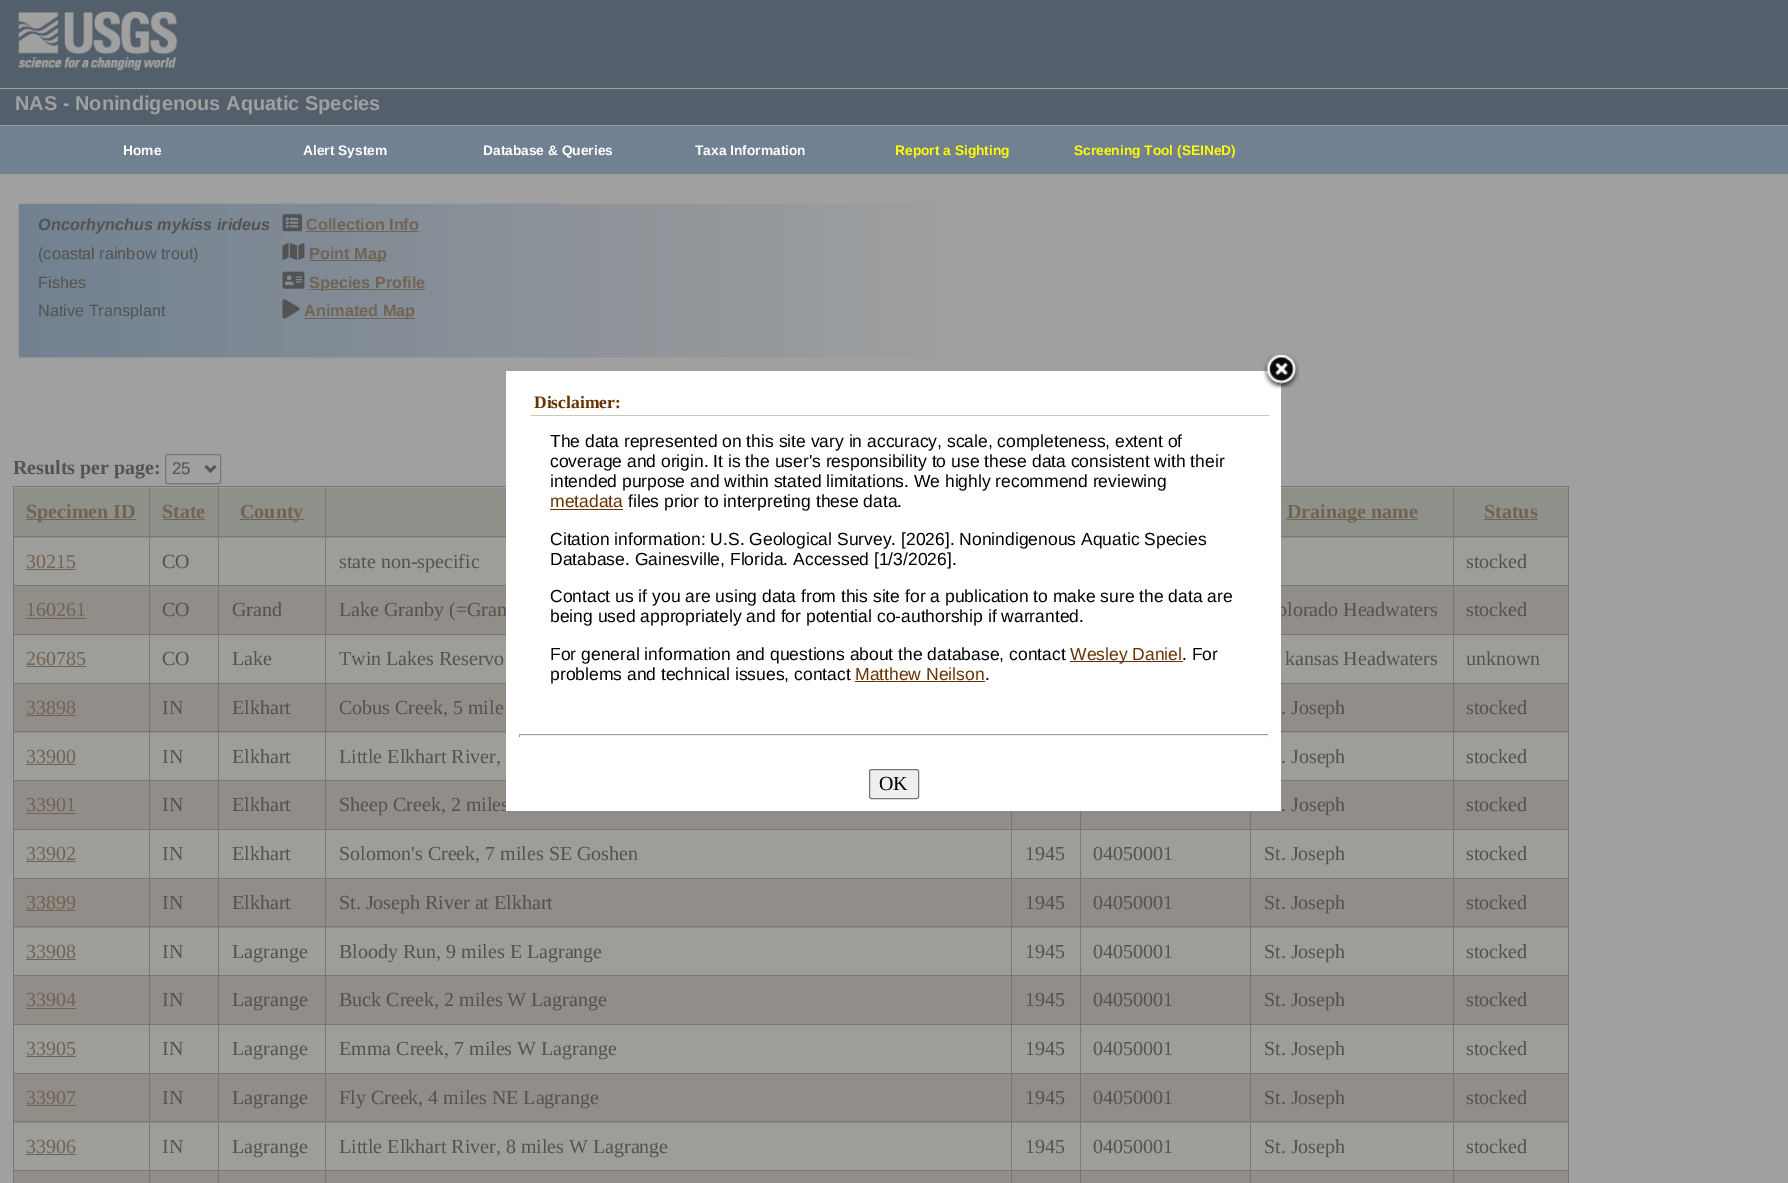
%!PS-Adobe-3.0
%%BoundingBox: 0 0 1788 1183
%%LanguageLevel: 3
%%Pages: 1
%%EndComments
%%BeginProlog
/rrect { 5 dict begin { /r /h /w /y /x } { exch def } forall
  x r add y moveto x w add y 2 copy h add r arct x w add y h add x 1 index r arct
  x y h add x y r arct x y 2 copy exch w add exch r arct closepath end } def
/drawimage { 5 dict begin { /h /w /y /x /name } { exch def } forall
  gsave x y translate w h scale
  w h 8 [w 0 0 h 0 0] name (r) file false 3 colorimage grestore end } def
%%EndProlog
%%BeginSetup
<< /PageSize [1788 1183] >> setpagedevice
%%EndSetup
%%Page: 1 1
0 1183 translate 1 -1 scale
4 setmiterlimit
0.627 setgray
0 0 1788 1183 rectfill
0.325 0.373 0.416 setrgbcolor
0 0 1788 88 rectfill
(images/1.raw) 18 11 160 60 drawimage
0 89 1788 36 rectfill
0.447 0.506 0.569 setrgbcolor
0 126 1788 48 rectfill
(images/2.raw) 18 203 934 155 drawimage
(images/3.raw) 282 214 20 18 drawimage
0.447 0.388 0.325 setrgbcolor
306 231 113 1 rectfill
(images/4.raw) 282 242 23 18 drawimage
309 260 77 1 rectfill
(images/5.raw) 282 271 23 18 drawimage
309 289 116 1 rectfill
(images/6.raw) 282 299 18 20 drawimage
304 318 111 1 rectfill
0.467 setgray
165.5 454.5 55 29 2 rrect stroke
0.325 setgray
2.5 setlinewidth
newpath 205.5 466 moveto 210.5 471 lineto 215.5 466 lineto stroke
0.616 0.616 0.604 setrgbcolor
14 487 1554 683 rectfill
0.467 setgray
13 486 1556 1 rectfill
1568 486 1 697 rectfill
13 486 1 697 rectfill
0.557 0.569 0.541 setrgbcolor
14 488 1554 50 rectfill
0.447 0.388 0.325 setrgbcolor
26 519 110 1 rectfill
0.467 setgray
325 536 181 1 rectfill
325 585 181 1 rectfill
0.569 0.553 0.533 setrgbcolor
14 586 1554 48 rectfill
0.467 setgray
325 634 181 1 rectfill
325 683 181 1 rectfill
0.569 0.553 0.533 setrgbcolor
14 684 1554 49 rectfill
0.467 setgray
325 731 181 1 rectfill
325 780 181 1 rectfill
0.569 0.553 0.533 setrgbcolor
14 781 1554 48 rectfill
0.467 setgray
1453 829 116 1 rectfill
1453 878 116 1 rectfill
0.569 0.553 0.533 setrgbcolor
14 879 1554 49 rectfill
0.467 setgray
1453 926 116 1 rectfill
1453 975 116 1 rectfill
0.569 0.553 0.533 setrgbcolor
14 976 1554 48 rectfill
0.467 setgray
1453 1024 116 1 rectfill
1453 1073 116 1 rectfill
0.569 0.553 0.533 setrgbcolor
14 1074 1554 49 rectfill
0.467 setgray
1453 1121 116 1 rectfill
1453 1170 116 1 rectfill
0.569 0.553 0.533 setrgbcolor
14 1171 1554 12 rectfill
0.467 setgray
1453 1170 1 13 rectfill
1250 1170 204 1 rectfill
1453 1121 1 50 rectfill
1250 1121 204 1 rectfill
1453 1073 1 50 rectfill
1250 1073 204 1 rectfill
1453 1024 1 50 rectfill
1250 1024 204 1 rectfill
1453 975 1 50 rectfill
1250 975 204 1 rectfill
1453 926 1 50 rectfill
1250 926 204 1 rectfill
1453 878 1 50 rectfill
1250 878 204 1 rectfill
1453 829 1 50 rectfill
1250 829 204 1 rectfill
1250 1170 1 13 rectfill
1080 1170 171 1 rectfill
1250 1121 1 50 rectfill
1080 1121 171 1 rectfill
1250 1073 1 50 rectfill
1080 1073 171 1 rectfill
1250 1024 1 50 rectfill
1080 1024 171 1 rectfill
1250 975 1 50 rectfill
1080 975 171 1 rectfill
1250 926 1 50 rectfill
1080 926 171 1 rectfill
1250 878 1 50 rectfill
1080 878 171 1 rectfill
1250 829 1 50 rectfill
1080 829 171 1 rectfill
1080 1170 1 13 rectfill
1011 1170 70 1 rectfill
1080 1121 1 50 rectfill
1011 1121 70 1 rectfill
1080 1073 1 50 rectfill
1011 1073 70 1 rectfill
1080 1024 1 50 rectfill
1011 1024 70 1 rectfill
1080 975 1 50 rectfill
1011 975 70 1 rectfill
1080 926 1 50 rectfill
1011 926 70 1 rectfill
1080 878 1 50 rectfill
1011 878 70 1 rectfill
1080 829 1 50 rectfill
1011 829 70 1 rectfill
1011 1170 1 13 rectfill
325 1170 688 1 rectfill
1011 1121 1 50 rectfill
325 1121 688 1 rectfill
1011 1073 1 50 rectfill
325 1073 688 1 rectfill
1011 1024 1 50 rectfill
325 1024 688 1 rectfill
1011 975 1 50 rectfill
325 975 688 1 rectfill
1011 926 1 50 rectfill
325 926 688 1 rectfill
1011 878 1 50 rectfill
325 878 688 1 rectfill
1011 829 1 50 rectfill
325 829 688 1 rectfill
325 1170 1 13 rectfill
218 1170 108 1 rectfill
325 1121 1 50 rectfill
218 1121 108 1 rectfill
325 1073 1 50 rectfill
218 1073 108 1 rectfill
325 1024 1 50 rectfill
218 1024 108 1 rectfill
325 975 1 50 rectfill
218 975 108 1 rectfill
325 926 1 50 rectfill
218 926 108 1 rectfill
325 878 1 50 rectfill
218 878 108 1 rectfill
325 829 1 50 rectfill
218 829 108 1 rectfill
325 780 1 50 rectfill
218 780 108 1 rectfill
325 731 1 50 rectfill
218 731 108 1 rectfill
325 683 1 50 rectfill
218 683 108 1 rectfill
325 634 1 50 rectfill
218 634 108 1 rectfill
325 585 1 50 rectfill
218 585 108 1 rectfill
325 536 1 50 rectfill
218 536 108 1 rectfill
218 1170 1 13 rectfill
149 1170 70 1 rectfill
218 1121 1 50 rectfill
149 1121 70 1 rectfill
218 1073 1 50 rectfill
149 1073 70 1 rectfill
218 1024 1 50 rectfill
149 1024 70 1 rectfill
218 975 1 50 rectfill
149 975 70 1 rectfill
218 926 1 50 rectfill
149 926 70 1 rectfill
218 878 1 50 rectfill
149 878 70 1 rectfill
218 829 1 50 rectfill
149 829 70 1 rectfill
218 780 1 50 rectfill
149 780 70 1 rectfill
218 731 1 50 rectfill
149 731 70 1 rectfill
218 683 1 50 rectfill
149 683 70 1 rectfill
218 634 1 50 rectfill
149 634 70 1 rectfill
218 585 1 50 rectfill
149 585 70 1 rectfill
218 536 1 50 rectfill
149 536 70 1 rectfill
149 1170 1 13 rectfill
13 1170 137 1 rectfill
149 1121 1 50 rectfill
13 1121 137 1 rectfill
149 1073 1 50 rectfill
13 1073 137 1 rectfill
149 1024 1 50 rectfill
13 1024 137 1 rectfill
149 975 1 50 rectfill
13 975 137 1 rectfill
149 926 1 50 rectfill
13 926 137 1 rectfill
149 878 1 50 rectfill
13 878 137 1 rectfill
149 829 1 50 rectfill
13 829 137 1 rectfill
149 780 1 50 rectfill
13 780 137 1 rectfill
149 731 1 50 rectfill
13 731 137 1 rectfill
149 683 1 50 rectfill
13 683 137 1 rectfill
149 634 1 50 rectfill
13 634 137 1 rectfill
149 585 1 50 rectfill
13 585 137 1 rectfill
149 536 1 50 rectfill
13 536 137 1 rectfill
149 486 1 52 rectfill
0.447 0.388 0.325 setrgbcolor
163 519 42 1 rectfill
0.467 setgray
218 486 1 52 rectfill
0.447 0.388 0.325 setrgbcolor
240 519 64 1 rectfill
0.467 setgray
325 486 1 52 rectfill
0.447 0.388 0.325 setrgbcolor
1286 519 132 1 rectfill
0.467 setgray
1453 536 116 1 rectfill
1453 585 116 1 rectfill
1453 634 116 1 rectfill
1453 683 116 1 rectfill
1453 731 116 1 rectfill
1453 780 116 1 rectfill
1453 780 1 50 rectfill
1281 780 173 1 rectfill
1453 731 1 50 rectfill
1281 731 173 1 rectfill
1453 683 1 50 rectfill
1281 683 173 1 rectfill
1453 634 1 50 rectfill
1281 634 173 1 rectfill
1453 585 1 50 rectfill
1281 585 173 1 rectfill
1453 536 1 50 rectfill
1281 536 173 1 rectfill
1453 486 1 52 rectfill
0.447 0.388 0.325 setrgbcolor
1484 519 54 1 rectfill
26 569 50 1 rectfill
26 618 60 1 rectfill
26 666 60 1 rectfill
26 715 50 1 rectfill
26 764 50 1 rectfill
26 813 50 1 rectfill
0.467 setgray
1250 811 1 19 rectfill
1011 811 1 19 rectfill
1080 811 1 19 rectfill
0.447 0.388 0.325 setrgbcolor
26 861 50 1 rectfill
26 910 50 1 rectfill
26 959 50 1 rectfill
26 1008 50 1 rectfill
26 1056 50 1 rectfill
26 1105 50 1 rectfill
26 1154 50 1 rectfill
/LiberationSans-Bold [20 0 0 -20 0 0] selectfont
0.627 setgray
15 110 moveto (NAS - Nonindigenous Aquatic Species) show
/LiberationSans-Bold [13.75 0 0 -13.75 0 0] selectfont
1 setgray
123 155 moveto (Home) show
303 155 moveto (Alert System) show
483 155 moveto (Database & Queries) show
695 155 moveto (Taxa Information) show
1 1 0 setrgbcolor
895 155 moveto (Report a Sighting) show
1074 155 moveto (Screening Tool \(SEINeD\)) show
/LiberationSans-BoldItalic [16.25 0 0 -16.25 0 0] selectfont
0.325 setgray
38 230 moveto (Oncorhynchus mykiss irideus) show
/LiberationSans-Regular [16.25 0 0 -16.25 0 0] selectfont
38 259 moveto (\(coastal rainbow trout\)) show
38 288 moveto (Fishes) show
38 316 moveto (Native Transplant) show
/LiberationSans-Bold [16.25 0 0 -16.25 0 0] selectfont
0.447 0.388 0.325 setrgbcolor
306 230 moveto (Collection Info) show
309 259 moveto (Point Map) show
309 288 moveto (Species Profile) show
304 316 moveto (Animated Map) show
/LiberationSerif-Bold [20 0 0 -20 0 0] selectfont
0.325 setgray
13 474 moveto (Results per page:) show
/LiberationSans-Regular [17 0 0 -17 0 0] selectfont
172 474 moveto (25) show
/LiberationSerif-Bold [20 0 0 -20 0 0] selectfont
0.447 0.388 0.325 setrgbcolor
26 518 moveto (Specimen ID) show
162 518 moveto (State) show
240 518 moveto (County) show
1287 518 moveto (Drainage name) show
1484 518 moveto (Status) show
/LiberationSerif-Regular [20 0 0 -20 0 0] selectfont
26 568 moveto (30215) show
0.325 setgray
162 568 moveto (CO) show
339 568 moveto (state non-specific) show
1466 568 moveto (stocked) show
0.447 0.388 0.325 setrgbcolor
26 616 moveto (160261) show
0.325 setgray
162 616 moveto (CO) show
232 616 moveto (Grand) show
339 616 moveto (Lake Granby \(=Gran) show
1277 616 moveto (olorado Headwaters) show
1466 616 moveto (stocked) show
0.447 0.388 0.325 setrgbcolor
26 665 moveto (260785) show
0.325 setgray
162 665 moveto (CO) show
232 665 moveto (Lake) show
339 665 moveto (Twin Lakes Reservo) show
1285 665 moveto (kansas Headwaters) show
1466 665 moveto (unknown) show
0.447 0.388 0.325 setrgbcolor
26 714 moveto (33898) show
0.325 setgray
162 714 moveto (IN) show
232 714 moveto (Elkhart) show
339 714 moveto (Cobus Creek, 5 mile) show
1281 714 moveto (. Joseph) show
1466 714 moveto (stocked) show
0.447 0.388 0.325 setrgbcolor
26 763 moveto (33900) show
0.325 setgray
162 763 moveto (IN) show
232 763 moveto (Elkhart) show
339 763 moveto (Little Elkhart River,) show
1281 763 moveto (. Joseph) show
1466 763 moveto (stocked) show
0.447 0.388 0.325 setrgbcolor
26 811 moveto (33901) show
0.325 setgray
162 811 moveto (IN) show
232 811 moveto (Elkhart) show
339 811 moveto (Sheep Creek, 2 miles) show
1281 811 moveto (. Joseph) show
1466 811 moveto (stocked) show
0.447 0.388 0.325 setrgbcolor
26 860 moveto (33902) show
0.325 setgray
162 860 moveto (IN) show
232 860 moveto (Elkhart) show
339 860 moveto (Solomon's Creek, 7 miles SE Goshen) show
1025 860 moveto (1945) show
1093 860 moveto (04050001) show
1264 860 moveto (St. Joseph) show
1466 860 moveto (stocked) show
0.447 0.388 0.325 setrgbcolor
26 909 moveto (33899) show
0.325 setgray
162 909 moveto (IN) show
232 909 moveto (Elkhart) show
339 909 moveto (St. Joseph River at Elkhart) show
1025 909 moveto (1945) show
1093 909 moveto (04050001) show
1264 909 moveto (St. Joseph) show
1466 909 moveto (stocked) show
0.447 0.388 0.325 setrgbcolor
26 958 moveto (33908) show
0.325 setgray
162 958 moveto (IN) show
232 958 moveto (Lagrange) show
339 958 moveto (Bloody Run, 9 miles E Lagrange) show
1025 958 moveto (1945) show
1093 958 moveto (04050001) show
1264 958 moveto (St. Joseph) show
1466 958 moveto (stocked) show
0.447 0.388 0.325 setrgbcolor
26 1006 moveto (33904) show
0.325 setgray
162 1006 moveto (IN) show
232 1006 moveto (Lagrange) show
339 1006 moveto (Buck Creek, 2 miles W Lagrange) show
1025 1006 moveto (1945) show
1093 1006 moveto (04050001) show
1264 1006 moveto (St. Joseph) show
1466 1006 moveto (stocked) show
0.447 0.388 0.325 setrgbcolor
26 1055 moveto (33905) show
0.325 setgray
162 1055 moveto (IN) show
232 1055 moveto (Lagrange) show
339 1055 moveto (Emma Creek, 7 miles W Lagrange) show
1025 1055 moveto (1945) show
1093 1055 moveto (04050001) show
1264 1055 moveto (St. Joseph) show
1466 1055 moveto (stocked) show
0.447 0.388 0.325 setrgbcolor
26 1104 moveto (33907) show
0.325 setgray
162 1104 moveto (IN) show
232 1104 moveto (Lagrange) show
339 1104 moveto (Fly Creek, 4 miles NE Lagrange) show
1025 1104 moveto (1945) show
1093 1104 moveto (04050001) show
1264 1104 moveto (St. Joseph) show
1466 1104 moveto (stocked) show
0.447 0.388 0.325 setrgbcolor
26 1153 moveto (33906) show
0.325 setgray
162 1153 moveto (IN) show
232 1153 moveto (Lagrange) show
339 1153 moveto (Little Elkhart River, 8 miles W Lagrange) show
1025 1153 moveto (1945) show
1093 1153 moveto (04050001) show
1264 1153 moveto (St. Joseph) show
1466 1153 moveto (stocked) show
1 setgray
506 371 775 440 rectfill
(images/7.raw) 1263 353 37 36 drawimage
0.804 0.784 0.694 setrgbcolor
531 415 738 1 rectfill
/LiberationSerif-Bold [17.5 0 0 -17.5 0 0] selectfont
0.4 0.2 0 setrgbcolor
534 408 moveto (Disclaimer:) show
/LiberationSans-Regular [17.5 0 0 -17.5 0 0] selectfont
0 setgray
550 447 moveto (The data represented on this site vary in accuracy, scale, completeness, extent of) show
550 467 moveto (coverage and origin. It is the user's responsibility to use these data consistent with their) show
550 487 moveto (intended purpose and within stated limitations. We highly recommend reviewing) show
0.4 0.2 0 setrgbcolor
550 507 moveto (metadata) show
550 509 73 1 rectfill
0 setgray
628 507 moveto (files prior to interpreting these data.) show
550 545 moveto (Citation information: U.S. Geological Survey. [2026]. Nonindigenous Aquatic Species) show
550 565 moveto (Database. Gainesville, Florida. Accessed [1/3/2026].) show
550 602 moveto (Contact us if you are using data from this site for a publication to make sure the data are) show
550 622 moveto (being used appropriately and for potential co-authorship if warranted.) show
550 660 moveto (For general information and questions about the database, contact) show
0.4 0.2 0 setrgbcolor
1070 661 113 1 rectfill
1070 660 moveto (Wesley Daniel) show
0 setgray
1182 660 moveto (. For) show
550 680 moveto (problems and technical issues, contact) show
0.4 0.2 0 setrgbcolor
855 680 moveto (Matthew Neilson) show
855 681 130 1 rectfill
0 setgray
985 680 moveto (.) show
0.624 setgray
519 734 750 1 rectfill
0.933 setgray
1268 734 1 3 rectfill
519 735 750 1 rectfill
0.624 setgray
519 734 1 3 rectfill
0.937 setgray
869.5 769.5 49 29 2 rrect gsave fill grestore
0.463 setgray
1 setlinewidth
stroke
/LiberationSerif-Regular [20 0 0 -20 0 0] selectfont
0 setgray
879 790 moveto (OK) show
showpage
%%EOF
